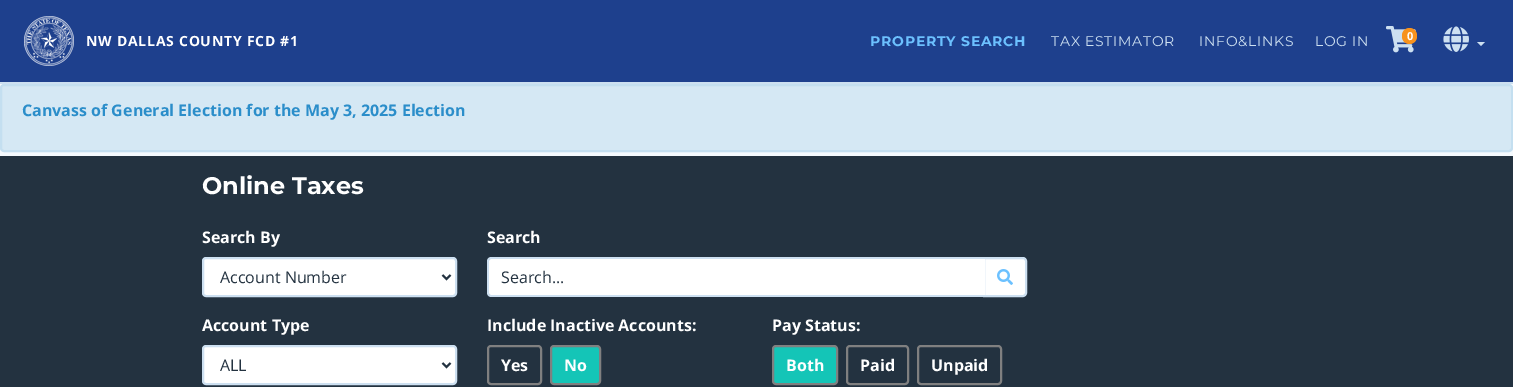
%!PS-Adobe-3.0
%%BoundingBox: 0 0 1513 387
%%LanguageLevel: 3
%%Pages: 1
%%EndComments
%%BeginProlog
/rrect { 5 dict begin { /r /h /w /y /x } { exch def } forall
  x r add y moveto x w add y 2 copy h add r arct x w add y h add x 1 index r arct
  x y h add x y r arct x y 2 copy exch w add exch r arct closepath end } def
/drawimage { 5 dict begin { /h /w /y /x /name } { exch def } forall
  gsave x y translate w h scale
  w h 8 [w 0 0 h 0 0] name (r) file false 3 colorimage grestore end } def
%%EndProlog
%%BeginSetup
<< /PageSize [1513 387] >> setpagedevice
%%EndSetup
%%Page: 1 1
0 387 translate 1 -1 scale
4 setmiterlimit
0.961 0.98 0.996 setrgbcolor
0 0 1513 387 rectfill
0.118 0.251 0.553 setrgbcolor
0 0 1513 82 rectfill
0.804 0.878 0.945 setrgbcolor
0 82 1513 2 rectfill
(images/1.raw) 24 16 50 50 drawimage
(images/2.raw) 1386 26 30 27 drawimage
0.969 0.573 0.114 setrgbcolor
1402 28 15 16 7.5 rrect fill
(images/3.raw) 1443 26 26 26 drawimage
0.804 0.878 0.945 setrgbcolor
newpath 1477 42 moveto 1485 42 lineto 1481 46 lineto closepath fill
0.835 0.91 0.957 setrgbcolor
1 85 1511 66 3 rrect gsave fill grestore
0.769 0.875 0.941 setrgbcolor
2 setlinewidth
stroke
0.137 0.196 0.251 setrgbcolor
0 156 1513 231 rectfill
1 setgray
203 258 253 38 3 rrect gsave fill grestore
0.804 0.878 0.945 setrgbcolor
stroke
0.137 0.196 0.251 setrgbcolor
newpath 442.5 275 moveto 446.5 279 lineto 450.5 275 lineto stroke
1 setgray
newpath 984 258 moveto 1023 258 lineto 1024.5 258 1026 259.5 1026 261 curveto 1026 293 lineto 1026 294.5 1024.5 296 1023 296 curveto 984 296 lineto closepath gsave fill grestore
0.804 0.878 0.945 setrgbcolor
stroke
1 setgray
newpath 491 259 moveto 985 259 lineto 985 295 lineto 491 295 lineto 490 295 489 294 489 293 curveto 489 261 lineto 489 260 490 259 491 259 curveto closepath fill
0.804 0.878 0.945 setrgbcolor
newpath 491 257 moveto 985 257 lineto 985 297 lineto 491 297 lineto 489 297 487 295 487 293 curveto 487 261 lineto 487 259 489 257 491 257 curveto closepath 491 259 moveto 985 259 lineto 985 295 lineto 491 295 lineto 490 295 489 294 489 293 curveto 489 261 lineto 489 260 490 259 491 259 curveto closepath eofill
(images/4.raw) 997 269 16 16 drawimage
1 setgray
203 346 253 38 3 rrect gsave fill grestore
0.804 0.878 0.945 setrgbcolor
stroke
0.137 0.196 0.251 setrgbcolor
newpath 442.5 363 moveto 446.5 367 lineto 450.5 363 lineto stroke
0.502 setgray
488 346 53 38 3 rrect stroke
0.078 0.773 0.718 setrgbcolor
551 346 49 38 3 rrect gsave fill grestore
0.502 setgray
stroke
0.078 0.773 0.718 setrgbcolor
773 346 64 38 3 rrect gsave fill grestore
0.502 setgray
stroke
847 346 61 38 3 rrect stroke
918 346 83 38 3 rrect stroke
/OpenSans-Bold [14 0 0 -14 0 0] selectfont
1 setgray
86 46 moveto 0.75 0 (NW DALLAS COUNTY FCD #1) ashow
/Montserrat-Bold [14 0 0 -14 0 0] selectfont
0.424 0.757 1 setrgbcolor
870 46 moveto 0.75 0 (PROPERTY SEARCH) ashow
/Montserrat-Regular [14 0 0 -14 0 0] selectfont
0.804 0.878 0.945 setrgbcolor
1051 46 moveto 0.75 0 (TAX ESTIMATOR) ashow
1199 46 moveto 0.75 0 (INFO&LINKS) ashow
1315 46 moveto 0.75 0 (LOG IN) ashow
/OpenSans-Bold [11 0 0 -11 0 0] selectfont
1 setgray
1407 40 moveto (0) show
/OpenSans-Bold [16 0 0 -16 0 0] selectfont
0.169 0.557 0.792 setrgbcolor
22 116 moveto (Canvass of General Election for the May 3, 2025 Election) show
/Montserrat-Bold [24 0 0 -24 0 0] selectfont
1 setgray
202 194 moveto (Online Taxes) show
/OpenSans-Bold [16 0 0 -16 0 0] selectfont
202 243 moveto (Search By) show
/OpenSans-Regular [16 0 0 -16 0 0] selectfont
0.137 0.196 0.251 setrgbcolor
220 283 moveto (Account Number) show
/OpenSans-Bold [16 0 0 -16 0 0] selectfont
1 setgray
487 243 moveto (Search) show
/OpenSans-Regular [16 0 0 -16 0 0] selectfont
0.137 0.196 0.251 setrgbcolor
501 283 moveto (Search...) show
/OpenSans-Bold [16 0 0 -16 0 0] selectfont
1 setgray
202 331 moveto (Account Type) show
/OpenSans-Regular [16 0 0 -16 0 0] selectfont
0.137 0.196 0.251 setrgbcolor
220 371 moveto (ALL) show
/OpenSans-Bold [16 0 0 -16 0 0] selectfont
1 setgray
487 331 moveto (Include Inactive Accounts:) show
501 371 moveto (Yes) show
564 371 moveto (No) show
772 331 moveto (Pay Status:) show
786 371 moveto (Both) show
860 371 moveto (Paid) show
931 371 moveto (Unpaid) show
showpage
%%EOF
